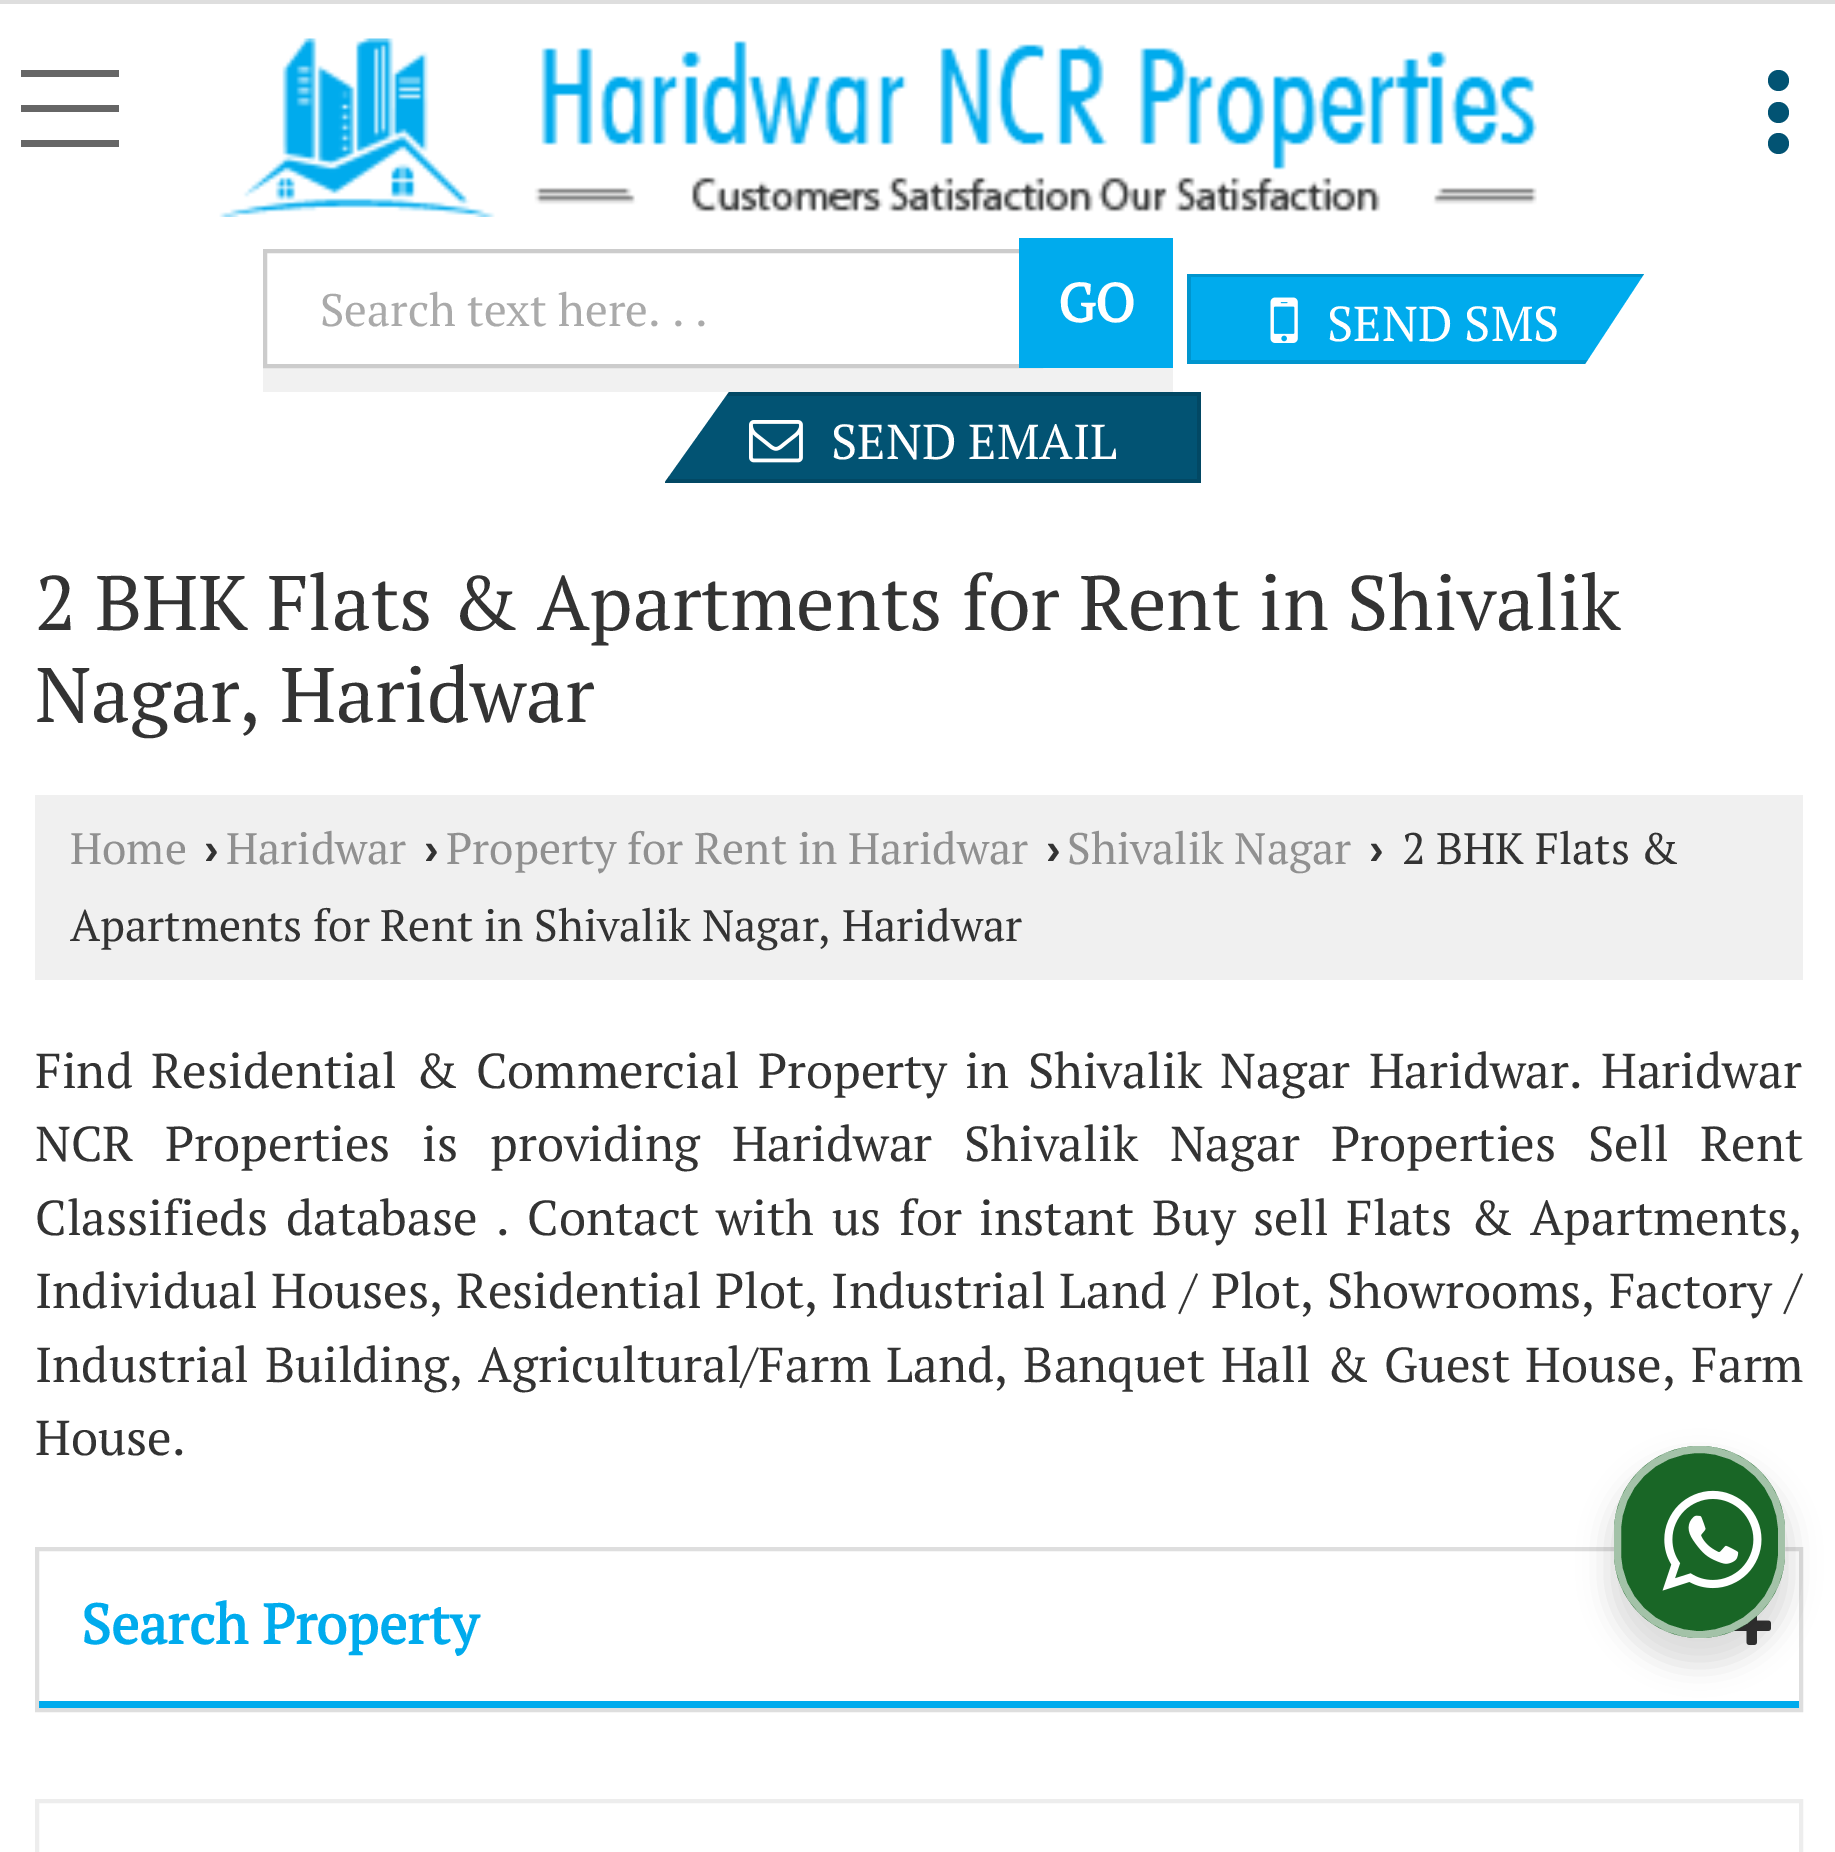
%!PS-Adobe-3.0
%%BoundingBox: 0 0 1835 1852
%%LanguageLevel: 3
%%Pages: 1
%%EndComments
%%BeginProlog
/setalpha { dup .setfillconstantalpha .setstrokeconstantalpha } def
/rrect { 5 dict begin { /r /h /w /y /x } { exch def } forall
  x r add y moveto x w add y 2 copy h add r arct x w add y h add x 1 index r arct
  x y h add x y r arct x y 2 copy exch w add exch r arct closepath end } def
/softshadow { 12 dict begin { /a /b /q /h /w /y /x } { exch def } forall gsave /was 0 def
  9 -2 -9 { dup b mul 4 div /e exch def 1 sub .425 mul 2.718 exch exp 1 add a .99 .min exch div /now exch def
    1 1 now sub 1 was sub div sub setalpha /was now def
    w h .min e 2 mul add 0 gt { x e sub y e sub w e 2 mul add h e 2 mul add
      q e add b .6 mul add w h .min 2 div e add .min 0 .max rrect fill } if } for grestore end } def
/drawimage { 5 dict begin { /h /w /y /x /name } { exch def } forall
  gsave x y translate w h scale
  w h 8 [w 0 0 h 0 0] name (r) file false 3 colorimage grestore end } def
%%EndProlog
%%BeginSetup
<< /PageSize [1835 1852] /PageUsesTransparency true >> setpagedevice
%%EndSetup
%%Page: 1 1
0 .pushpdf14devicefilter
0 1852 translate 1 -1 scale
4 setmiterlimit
1 setgray
0 0 1835 1852 rectfill
0.871 setgray
0 0 1835 4 rectfill
0.008 0.325 0.451 setrgbcolor
newpath 1778.5 112.5 10.5 0 360 arc closepath fill
newpath 1778.5 80.5 10.5 0 360 arc closepath fill
newpath 1778.5 143.5 10.5 0 360 arc closepath fill
(images/1.raw) 219 38 1318 179 drawimage
0.4 setgray
21 105 98 7 rectfill
21 70 98 7 rectfill
21 140 98 7 rectfill
0.945 setgray
263 368 910 24 rectfill
0.8 setgray
4 setlinewidth
265 251 776 115 rectstroke
0 0.671 0.929 setrgbcolor
1019 238 154 130 rectfill
newpath 1585 364 moveto 1187 364 lineto 1187 274 lineto 1644 274 lineto closepath fill
0.13 setalpha
0 setgray
newpath 1191 277 moveto 1191 360 lineto 1588 360 lineto 1585 364 lineto 1187 364 lineto 1187 274 lineto 1644 274 lineto 1641 278 lineto 1641 277 lineto closepath fill
1 setalpha
(images/2.raw) 1270 297 28 46 drawimage
0.008 0.325 0.451 setrgbcolor
newpath 665 482 moveto 665 483 lineto 1201 483 lineto 1201 392 lineto 729 392 lineto closepath fill
0.13 setalpha
0 setgray
newpath 665 482 moveto 665 483 lineto 1201 483 lineto 1201 392 lineto 729 392 lineto 726 396 lineto 1197 396 lineto 1197 479 lineto 669 479 lineto 669 476 lineto closepath fill
1 setalpha
(images/3.raw) 749 420 54 43 drawimage
0.941 setgray
35 795 1768 185 rectfill
0.871 setgray
37 1549 1764 161 rectstroke
0 0.671 0.929 setrgbcolor
39 1701 1760 7 rectfill
(images/4.raw) 1733 1615 38 30 drawimage
0.929 setgray
37 1801 1764 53 rectstroke
0 setgray
1607 1460 185 206 92.5 14 0.14 softshadow
0.098 0.4 0.149 setrgbcolor
1614 1446 171 192 85.5 rrect fill
0.6 setalpha
1 setgray
7 setlinewidth
1617.5 1449.5 164 185 82 rrect stroke
1 setalpha
(images/5.raw) 1662 1490 100 101 drawimage
/PTSerif-Regular [45.5 0 0 -45.5 0 0] selectfont
0.667 setgray
320 326 moveto (Search text here. . .) show
/PTSerif-Bold [54 0 0 -54 0 0] selectfont
1 setgray
1058 322 moveto (GO) show
/PTSerif-Regular [49 0 0 -49 0 0] selectfont
1327 341 moveto (SEND SMS) show
831 459 moveto (SEND EMAIL) show
/PTSerif-Regular [77 0 0 -77 0 0] selectfont
0.2 setgray
35 630 moveto (2 BHK Flats & Apartments for Rent in Shivalik) show
35 722 moveto (Nagar, Haridwar) show
/PTSerif-Regular [44.1 0 0 -44.1 0 0] selectfont
0.565 setgray
70 864 moveto (Home) show
/LiberationSans-Bold [44.1 0 0 -44.1 0 0] selectfont
0.2 setgray
204 864 moveto (›) show
/PTSerif-Regular [44.1 0 0 -44.1 0 0] selectfont
0.565 setgray
226 864 moveto (Haridwar) show
/LiberationSans-Bold [44.1 0 0 -44.1 0 0] selectfont
0.2 setgray
424 864 moveto (›) show
/PTSerif-Regular [44.1 0 0 -44.1 0 0] selectfont
0.565 setgray
446 864 moveto (Property for Rent in Haridwar) show
/LiberationSans-Bold [44.1 0 0 -44.1 0 0] selectfont
0.2 setgray
1046 864 moveto (›) show
/PTSerif-Regular [44.1 0 0 -44.1 0 0] selectfont
0.565 setgray
1067 864 moveto (Shivalik Nagar) show
/LiberationSans-Bold [44.1 0 0 -44.1 0 0] selectfont
0.2 setgray
1369 864 moveto (›) show
/PTSerif-Regular [44.1 0 0 -44.1 0 0] selectfont
1402 864 moveto (2 BHK Flats &) show
70 941 moveto (Apartments for Rent in Shivalik Nagar, Haridwar) show
/PTSerif-Regular [49 0 0 -49 0 0] selectfont
35 1088 moveto 6.5 0 32 (Find Residential & Commercial Property in Shivalik Nagar Haridwar. Haridwar) widthshow
35 1161 moveto 19.75 0 32 (NCR Properties is) widthshow
490 1161 moveto 19.75 0 32 (providing Haridwar Shivalik Nagar Properties Sell Rent) widthshow
35 1235 moveto 5.9 0 32 (Classifieds database . Contact with us for instant Buy sell Flats & Apartments,) widthshow
35 1308 moveto 1.5 0 32 (Individual Houses, Residential Plot, Industrial Land / Plot, Showrooms, Factory /) widthshow
35 1382 moveto 3.5 0 32 (Industrial Building, Agricultural/Farm Land, Banquet Hall & Guest House, Farm) widthshow
35 1455 moveto (House.) show
/PTSerif-Bold [56 0 0 -56 0 0] selectfont
0 0.671 0.929 setrgbcolor
81 1644 moveto (Search Property) show
.poppdf14devicefilter showpage
%%EOF
